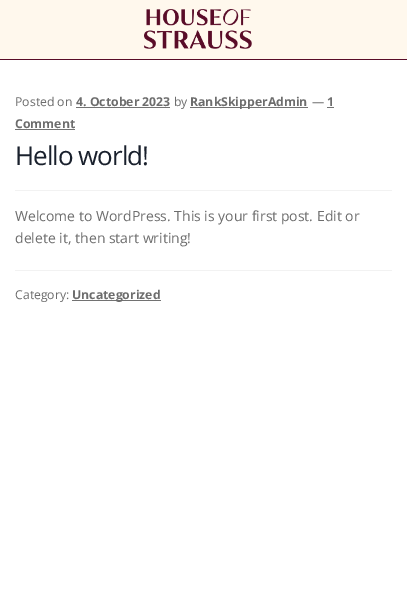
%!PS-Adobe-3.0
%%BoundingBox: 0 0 407 610
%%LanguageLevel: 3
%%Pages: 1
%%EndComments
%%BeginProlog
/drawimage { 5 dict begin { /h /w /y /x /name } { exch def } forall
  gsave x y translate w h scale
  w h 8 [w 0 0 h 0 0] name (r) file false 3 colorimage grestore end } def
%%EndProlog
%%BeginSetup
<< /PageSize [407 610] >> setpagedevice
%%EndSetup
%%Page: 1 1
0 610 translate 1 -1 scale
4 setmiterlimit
1 setgray
0 0 407 610 rectfill
1 0.973 0.929 setrgbcolor
0 0 407 59 rectfill
0.349 0.047 0.157 setrgbcolor
0 59 407 1 rectfill
(images/1.raw) 144 9 108 40 drawimage
0.949 setgray
15 190 377 1 rectfill
0.447 setgray
76 107 94 1 rectfill
190 107 118 1 rectfill
327 107 7 1 rectfill
15 129 60 1 rectfill
0.949 setgray
15 270 377 1 rectfill
0.447 setgray
72 300 89 1 rectfill
/OpenSans-Regular [12.25 0 0 -12.25 0 0] selectfont
0.427 setgray
15 106 moveto (Posted on) show
/OpenSans-Bold [12.25 0 0 -12.25 0 0] selectfont
76 106 moveto (4. October 2023) show
/OpenSans-Regular [12.25 0 0 -12.25 0 0] selectfont
174 106 moveto (by) show
/OpenSans-Bold [12.25 0 0 -12.25 0 0] selectfont
190 106 moveto (RankSkipperAdmin) show
/OpenSans-Regular [12.25 0 0 -12.25 0 0] selectfont
312 106 moveto (—) show
/OpenSans-Bold [12.25 0 0 -12.25 0 0] selectfont
327 106 moveto (1) show
15 128 moveto (Comment) show
/OpenSans-Regular [26 0 0 -26 0 0] selectfont
0.098 0.125 0.173 setrgbcolor
15 165 moveto -1 0 (Hello world!) ashow
/OpenSans-Regular [14 0 0 -14 0 0] selectfont
0.427 setgray
15 221 moveto (Welcome to WordPress. This is your first post. Edit or) show
15 243 moveto (delete it, then start writing!) show
/OpenSans-Regular [12.25 0 0 -12.25 0 0] selectfont
15 299 moveto (Category:) show
/OpenSans-Bold [12.25 0 0 -12.25 0 0] selectfont
72 299 moveto (Uncategorized) show
showpage
%%EOF
